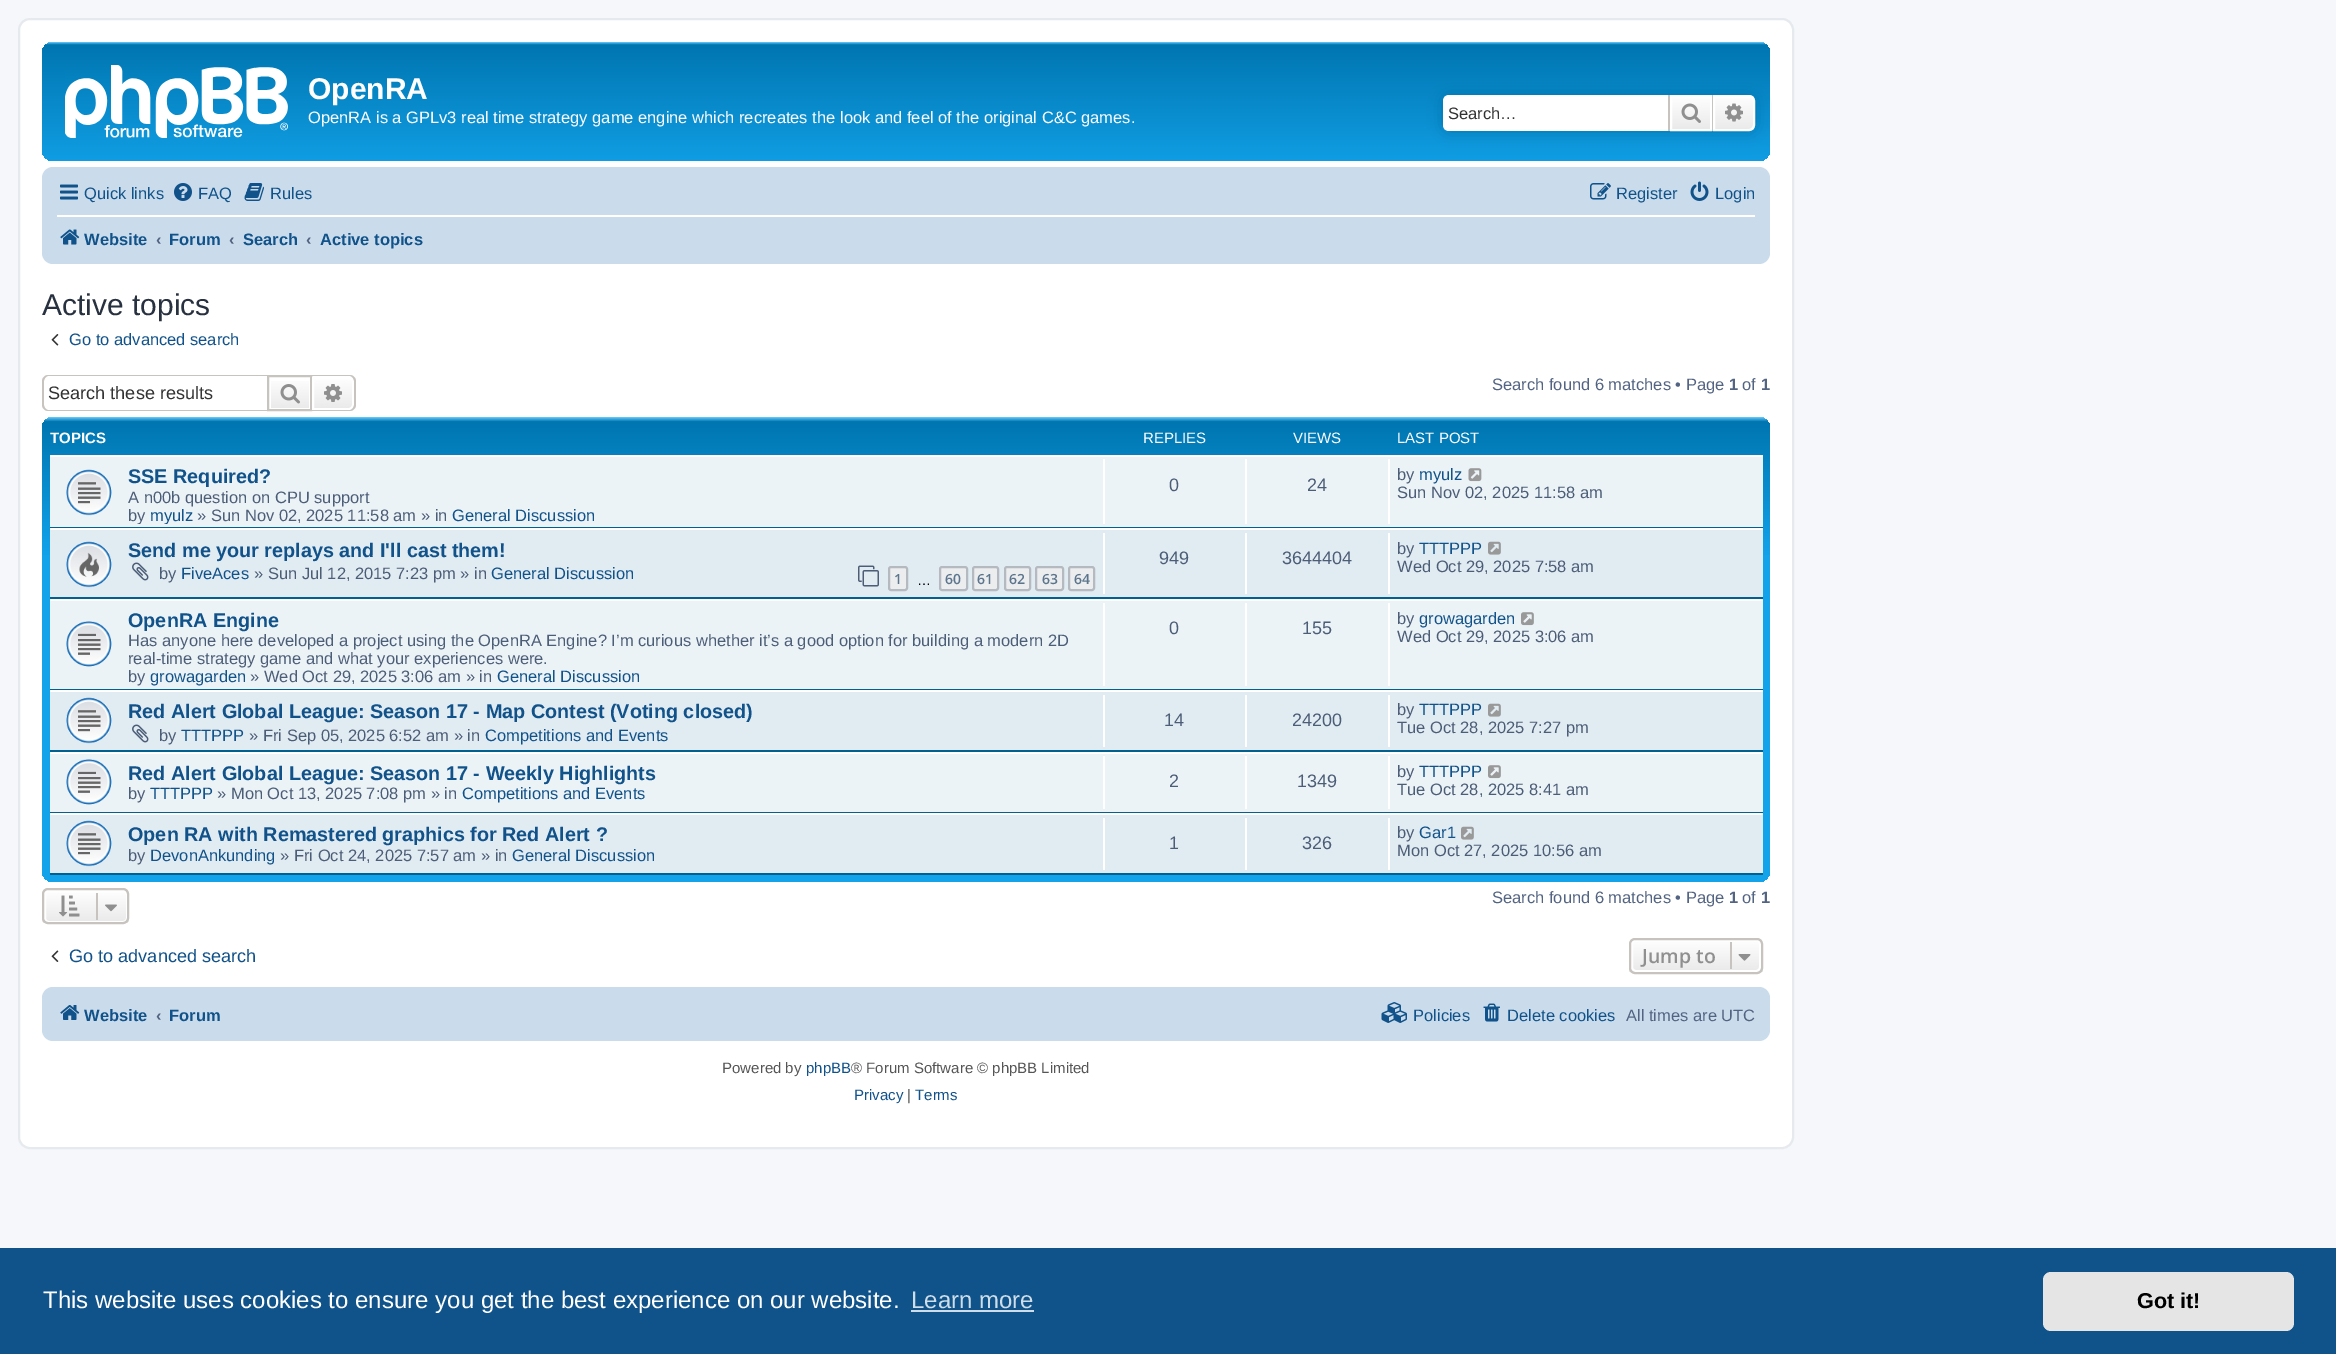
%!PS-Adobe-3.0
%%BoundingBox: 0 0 2336 1354
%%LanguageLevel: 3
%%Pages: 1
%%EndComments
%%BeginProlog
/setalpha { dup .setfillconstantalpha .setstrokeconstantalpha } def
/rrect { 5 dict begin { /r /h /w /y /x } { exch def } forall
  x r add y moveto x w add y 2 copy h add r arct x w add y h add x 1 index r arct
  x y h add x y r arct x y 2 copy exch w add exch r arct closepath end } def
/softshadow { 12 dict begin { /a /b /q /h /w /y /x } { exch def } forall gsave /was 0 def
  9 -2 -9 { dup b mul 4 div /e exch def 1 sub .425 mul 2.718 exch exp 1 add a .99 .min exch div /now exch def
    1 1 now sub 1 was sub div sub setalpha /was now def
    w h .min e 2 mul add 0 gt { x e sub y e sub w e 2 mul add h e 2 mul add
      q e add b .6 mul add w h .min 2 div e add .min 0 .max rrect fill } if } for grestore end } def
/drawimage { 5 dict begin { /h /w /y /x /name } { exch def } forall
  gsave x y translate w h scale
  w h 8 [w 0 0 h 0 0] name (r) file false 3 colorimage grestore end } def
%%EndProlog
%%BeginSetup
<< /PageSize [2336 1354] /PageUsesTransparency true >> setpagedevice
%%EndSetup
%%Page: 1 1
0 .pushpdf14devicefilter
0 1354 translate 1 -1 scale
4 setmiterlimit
0.961 0.969 0.98 setrgbcolor
0 0 2336 1354 rectfill
1 setgray
19 19 1774 1129 11 rrect gsave fill grestore
0.902 0.914 0.929 setrgbcolor
2 setlinewidth
stroke
gsave 42 42 1728 119 11 rrect clip newpath
<< /ShadingType 2 /ColorSpace /DeviceRGB /Coords [906 42 906 180] /Extend [true true] /Function << /FunctionType 3 /Domain [0 1] /Functions [<< /FunctionType 2 /Domain [0 1] /C0 [0.416 0.808 1] /C1 [0 0.463 0.694] /N 1 >> << /FunctionType 2 /Domain [0 1] /C0 [0 0.463 0.694] /C1 [0.071 0.639 0.922] /N 1 >>] /Bounds [0.02] /Encode [0 1 0 1] >> >> shfill grestore
(images/1.raw) 65 65 223 73 drawimage
0 0.459 0.69 setrgbcolor
1443 95 312 36 6 7.5 1 softshadow
1 setgray
newpath 1449 95 moveto 1668 95 lineto 1668 131 lineto 1449 131 lineto 1445.5 131 1443 128.5 1443 125 curveto 1443 101 lineto 1443 97.5 1445.5 95 1449 95 curveto closepath fill
gsave newpath 1672 97 moveto 1710 97 lineto 1710 129 lineto 1672 129 lineto closepath clip newpath
<< /ShadingType 2 /ColorSpace /DeviceRGB /Coords [1691 95 1691 131] /Extend [true true] /Function << /FunctionType 2 /Domain [0 1] /C0 [1 1 1] /C1 [0.914 0.914 0.914] /N 1 >> >> shfill grestore
1671 96 40 34 rectstroke
0.78 0.765 0.749 setrgbcolor
1712 95 1 36 rectfill
1668 95 2 36 rectfill
(images/2.raw) 1681 103 20 20 drawimage
gsave newpath 1714 96 moveto 1749 96 lineto 1752 96 1754 98 1754 101 curveto 1754 125 lineto 1754 128 1752 130 1749 130 curveto 1714 130 lineto closepath clip newpath
<< /ShadingType 2 /ColorSpace /DeviceRGB /Coords [1734 95 1734 131] /Extend [true true] /Function << /FunctionType 2 /Domain [0 1] /C0 [1 1 1] /C1 [0.914 0.914 0.914] /N 1 >> >> shfill grestore
1 setgray
newpath 1714 96 moveto 1749 96 lineto 1752 96 1754 98 1754 101 curveto 1754 125 lineto 1754 128 1752 130 1749 130 curveto 1714 130 lineto closepath stroke
(images/3.raw) 1725 103 18 19 drawimage
0.792 0.863 0.922 setrgbcolor
42 167 1728 97 11 rrect fill
(images/4.raw) 60 184 18 16 drawimage
(images/5.raw) 174 183 18 18 drawimage
(images/6.raw) 244 183 20 18 drawimage
(images/7.raw) 1590 183 21 17 drawimage
(images/8.raw) 1690 181 19 20 drawimage
1 setgray
57 215 1698 2 rectfill
(images/9.raw) 60 229 20 16 drawimage
(images/10.raw) 51 334 8 12 drawimage
0.78 0.765 0.749 setrgbcolor
newpath 48 375 moveto 267 375 lineto 267 411 lineto 48 411 lineto 45 411 42 408 42 405 curveto 42 381 lineto 42 378 45 375 48 375 curveto closepath 48 376 moveto 267 376 lineto 267 410 lineto 48 410 lineto 46 410 44 407 44 405 curveto 44 381 lineto 44 379 46 376 48 376 curveto closepath eofill
gsave newpath 271 381 moveto 309 381 lineto 309 408 lineto 271 408 lineto closepath clip newpath
<< /ShadingType 2 /ColorSpace /DeviceRGB /Coords [290 377 290 410] /Extend [true true] /Function << /FunctionType 2 /Domain [0 1] /C0 [1 1 1] /C1 [0.914 0.914 0.914] /N 1 >> >> shfill grestore
268 376 43 34 rectstroke
(images/11.raw) 280 384 20 20 drawimage
gsave newpath 313 378 moveto 349 378 lineto 351 378 353 380 353 382 curveto 353 405 lineto 353 407 351 409 349 409 curveto 313 409 lineto closepath clip newpath
<< /ShadingType 2 /ColorSpace /DeviceRGB /Coords [333 377 333 410] /Extend [true true] /Function << /FunctionType 2 /Domain [0 1] /C0 [1 1 1] /C1 [0.914 0.914 0.914] /N 1 >> >> shfill grestore
1 setgray
newpath 313 378 moveto 349 378 lineto 351 378 353 380 353 382 curveto 353 405 lineto 353 407 351 409 349 409 curveto 313 409 lineto closepath stroke
0.78 0.765 0.749 setrgbcolor
newpath 312 375 moveto 350 375 lineto 353 375 356 378 356 381 curveto 356 405 lineto 356 408 353 411 350 411 curveto 312 411 lineto closepath 312 376 moveto 350 376 lineto 352 376 354 379 354 381 curveto 354 405 lineto 354 407 352 410 350 410 curveto 312 410 lineto closepath eofill
(images/12.raw) 324 384 18 18 drawimage
gsave 42 417 1728 465 11 rrect clip newpath
<< /ShadingType 2 /ColorSpace /DeviceRGB /Coords [906 417 906 882] /Extend [true true] /Function << /FunctionType 3 /Domain [0 1] /Functions [<< /FunctionType 2 /Domain [0 1] /C0 [0.416 0.808 1] /C1 [0 0.463 0.694] /N 1 >> << /FunctionType 2 /Domain [0 1] /C0 [0 0.463 0.694] /C1 [0.071 0.639 0.922] /N 1 >> << /FunctionType 2 /Domain [0 1] /C0 [0.071 0.639 0.922] /C1 [0.071 0.639 0.922] /N 1 >>] /Bounds [0.01 0.3] /Encode [0 1 0 1 0 1] >> >> shfill grestore
0.925 0.953 0.969 setrgbcolor
50 457 1713 70 rectfill
1 setgray
50 455 1713 2 rectfill
0 0.376 0.561 setrgbcolor
50 527 1713 1 rectfill
(images/13.raw) 66 469 46 47 drawimage
1 setgray
1103 459 2 65 rectfill
1245 459 2 65 rectfill
1388 459 2 65 rectfill
(images/14.raw) 1468 468 14 14 drawimage
0.882 0.922 0.949 setrgbcolor
50 530 1713 67 rectfill
1 setgray
50 528 1713 2 rectfill
0 0.376 0.561 setrgbcolor
50 597 1713 2 rectfill
(images/15.raw) 66 541 46 47 drawimage
(images/16.raw) 132 562 17 19 drawimage
(images/17.raw) 858 565 21 22 drawimage
0.925 0.929 0.933 setrgbcolor
889 567 18 23 2 rrect gsave fill grestore
0.706 0.729 0.753 setrgbcolor
stroke
0.925 0.929 0.933 setrgbcolor
940 567 27 23 2 rrect gsave fill grestore
0.706 0.729 0.753 setrgbcolor
stroke
0.925 0.929 0.933 setrgbcolor
973 567 25 23 2 rrect gsave fill grestore
0.706 0.729 0.753 setrgbcolor
stroke
0.925 0.929 0.933 setrgbcolor
1005 567 25 23 2 rrect gsave fill grestore
0.706 0.729 0.753 setrgbcolor
stroke
0.925 0.929 0.933 setrgbcolor
1036 567 27 23 2 rrect gsave fill grestore
0.706 0.729 0.753 setrgbcolor
stroke
0.925 0.929 0.933 setrgbcolor
1069 567 25 23 2 rrect gsave fill grestore
0.706 0.729 0.753 setrgbcolor
stroke
1 setgray
1103 533 2 61 rectfill
1245 533 2 61 rectfill
1388 533 2 61 rectfill
(images/18.raw) 1488 541 13 14 drawimage
0.925 0.953 0.969 setrgbcolor
50 601 1713 88 rectfill
1 setgray
50 599 1713 2 rectfill
0 0.376 0.561 setrgbcolor
50 689 1713 1 rectfill
(images/19.raw) 66 621 46 46 drawimage
1 setgray
1103 603 2 83 rectfill
1245 603 2 83 rectfill
1388 603 2 83 rectfill
(images/20.raw) 1521 612 13 14 drawimage
0.882 0.922 0.949 setrgbcolor
50 692 1713 58 rectfill
1 setgray
50 690 1713 2 rectfill
0 0.376 0.561 setrgbcolor
50 750 1713 2 rectfill
(images/21.raw) 66 697 46 47 drawimage
(images/16.raw) 132 724 17 19 drawimage
1 setgray
1103 695 2 52 rectfill
1245 695 2 52 rectfill
1388 695 2 52 rectfill
(images/18.raw) 1488 703 13 14 drawimage
0.925 0.953 0.969 setrgbcolor
50 754 1713 58 rectfill
1 setgray
50 752 1713 2 rectfill
0 0.376 0.561 setrgbcolor
50 812 1713 1 rectfill
(images/19.raw) 66 759 46 46 drawimage
1 setgray
1103 756 2 53 rectfill
1245 756 2 53 rectfill
1388 756 2 53 rectfill
(images/20.raw) 1488 765 13 14 drawimage
0.882 0.922 0.949 setrgbcolor
50 815 1713 58 rectfill
1 setgray
50 813 1713 2 rectfill
0 0.376 0.561 setrgbcolor
50 873 1713 2 rectfill
(images/21.raw) 66 820 46 47 drawimage
1 setgray
1103 818 2 52 rectfill
1245 818 2 52 rectfill
1388 818 2 52 rectfill
(images/18.raw) 1461 826 13 14 drawimage
gsave
42 888 87 36 6 rrect clip newpath
gsave newpath 42 890 moveto 129 890 lineto 129 923 lineto 42 923 lineto closepath clip newpath
<< /ShadingType 2 /ColorSpace /DeviceRGB /Coords [86 890 86 923] /Extend [true true] /Function << /FunctionType 2 /Domain [0 1] /C0 [1 1 1] /C1 [0.914 0.914 0.914] /N 1 >> >> shfill grestore
grestore
45 891 82 31 4 rrect stroke
0.78 0.765 0.749 setrgbcolor
43 889 85 34 5 rrect stroke
(images/22.raw) 59 895 21 22 drawimage
96 893 2 27 rectfill
(images/23.raw) 105 904 12 8 drawimage
(images/24.raw) 51 950 8 12 drawimage
gsave
1629 938 134 36 6 rrect clip newpath
gsave newpath 1629 939 moveto 1763 939 lineto 1763 972 lineto 1629 972 lineto closepath clip newpath
<< /ShadingType 2 /ColorSpace /DeviceRGB /Coords [1696 939 1696 972] /Extend [true true] /Function << /FunctionType 2 /Domain [0 1] /C0 [1 1 1] /C1 [0.914 0.914 0.914] /N 1 >> >> shfill grestore
grestore
1 setgray
1632 940 128 31 4 rrect stroke
0.78 0.765 0.749 setrgbcolor
1630 939 132 34 5 rrect stroke
1730 942 2 27 rectfill
(images/25.raw) 1738 954 13 7 drawimage
0.792 0.863 0.922 setrgbcolor
42 987 1728 54 11 rrect fill
(images/26.raw) 60 1005 20 15 drawimage
(images/27.raw) 1381 1002 26 21 drawimage
(images/28.raw) 1483 1003 17 19 drawimage
0.059 0.325 0.541 setrgbcolor
0 1248 2336 106 rectfill
0.812 0.867 0.91 setrgbcolor
911 1310 123 2 rectfill
0.898 setgray
2043 1272 251 59 8 rrect fill
/LiberationSans-Bold [30 0 0 -30 0 0] selectfont
1 setgray
308 99 moveto (OpenRA) show
/LiberationSans-Regular [16.5 0 0 -16.5 0 0] selectfont
308 123 moveto (OpenRA is a GPLv3 real time strategy game engine which recreates the look and feel of the original C&C games.) show
0.2 setgray
1448 119 moveto (Search…) show
0.063 0.322 0.537 setrgbcolor
84 199 moveto (Quick links) show
198 199 moveto (FAQ) show
270 199 moveto (Rules) show
1616 199 moveto (Register) show
1715 199 moveto (Login) show
/LiberationSans-Bold [16.5 0 0 -16.5 0 0] selectfont
84 245 moveto (Website) show
0.325 0.392 0.51 setrgbcolor
156 245 moveto (‹) show
0.063 0.322 0.537 setrgbcolor
169 245 moveto (Forum) show
0.325 0.392 0.51 setrgbcolor
229 245 moveto (‹) show
0.063 0.322 0.537 setrgbcolor
243 245 moveto (Search) show
0.325 0.392 0.51 setrgbcolor
306 245 moveto (‹) show
0.063 0.322 0.537 setrgbcolor
320 245 moveto (Active topics) show
/LiberationSans-Regular [30 0 0 -30 0 0] selectfont
0.157 0.192 0.247 setrgbcolor
42 315 moveto (Active topics) show
/LiberationSans-Regular [16.5 0 0 -16.5 0 0] selectfont
0.063 0.322 0.537 setrgbcolor
69 345 moveto (Go to advanced search) show
/LiberationSans-Regular [18.1 0 0 -18.1 0 0] selectfont
0.2 setgray
48 399 moveto (Search these results) show
/LiberationSans-Regular [16.5 0 0 -16.5 0 0] selectfont
0.325 0.392 0.51 setrgbcolor
1492 390 moveto (Search found 6 matches • Page) show
/LiberationSans-Bold [16.5 0 0 -16.5 0 0] selectfont
1729 390 moveto (1) show
/LiberationSans-Regular [16.5 0 0 -16.5 0 0] selectfont
1742 390 moveto (of) show
/LiberationSans-Bold [16.5 0 0 -16.5 0 0] selectfont
1761 390 moveto (1) show
gsave
50 425 1713 30 rectclip
/LiberationSans-Bold [15 0 0 -15 0 0] selectfont
1 setgray
50 443 moveto (TOPICS) show
grestore
/LiberationSans-Regular [15 0 0 -15 0 0] selectfont
1 setgray
1143 443 moveto (REPLIES) show
1293 443 moveto (VIEWS) show
1397 443 moveto (LAST POST) show
/LiberationSans-Bold [19.8 0 0 -19.8 0 0] selectfont
0.063 0.322 0.537 setrgbcolor
128 483 moveto (SSE Required?) show
/LiberationSans-Regular [16.5 0 0 -16.5 0 0] selectfont
0.298 0.365 0.467 setrgbcolor
128 503 moveto (A n00b question on CPU support) show
gsave
50 459 1713 65 rectclip
128 521 moveto (by) show
0.063 0.322 0.537 setrgbcolor
150 521 moveto (myulz) show
grestore
197 521 moveto (» Sun Nov 02, 2025 11:58 am » in) show
0.063 0.322 0.537 setrgbcolor
452 521 moveto (General Discussion) show
/LiberationSans-Regular [18 0 0 -18 0 0] selectfont
0.298 0.365 0.467 setrgbcolor
1169 491 moveto (0) show
1307 491 moveto (24) show
/LiberationSans-Regular [16.5 0 0 -16.5 0 0] selectfont
1397 480 moveto (by) show
0.063 0.322 0.537 setrgbcolor
1419 480 moveto (myulz) show
0.298 0.365 0.467 setrgbcolor
1397 498 moveto (Sun Nov 02, 2025 11:58 am) show
/LiberationSans-Bold [19.8 0 0 -19.8 0 0] selectfont
0.063 0.322 0.537 setrgbcolor
128 557 moveto (Send me your replays and I'll cast them!) show
/LiberationSans-Regular [16.5 0 0 -16.5 0 0] selectfont
0.298 0.365 0.467 setrgbcolor
159 579 moveto (by) show
0.063 0.322 0.537 setrgbcolor
181 579 moveto (FiveAces) show
0.298 0.365 0.467 setrgbcolor
254 579 moveto (» Sun Jul 12, 2015 7:23 pm » in) show
0.063 0.322 0.537 setrgbcolor
491 579 moveto (General Discussion) show
/OpenSans-SemiBold [14 0 0 -14 0 0] selectfont
0.361 0.459 0.549 setrgbcolor
894 584 moveto (1) show
/LiberationSans-Regular [14 0 0 -14 0 0] selectfont
0 setgray
917 585 moveto (…) show
/OpenSans-SemiBold [14 0 0 -14 0 0] selectfont
0.361 0.459 0.549 setrgbcolor
945 584 moveto (60) show
977 584 moveto (61) show
1009 584 moveto (62) show
1042 584 moveto (63) show
1074 584 moveto (64) show
/LiberationSans-Regular [18 0 0 -18 0 0] selectfont
0.298 0.365 0.467 setrgbcolor
1159 564 moveto (949) show
1282 564 moveto (3644404) show
/LiberationSans-Regular [16.5 0 0 -16.5 0 0] selectfont
1397 554 moveto (by) show
0.063 0.322 0.537 setrgbcolor
1419 554 moveto (TTTPPP) show
0.298 0.365 0.467 setrgbcolor
1397 572 moveto (Wed Oct 29, 2025 7:58 am) show
/LiberationSans-Bold [19.8 0 0 -19.8 0 0] selectfont
0.063 0.322 0.537 setrgbcolor
128 627 moveto (OpenRA Engine) show
/LiberationSans-Regular [16.5 0 0 -16.5 0 0] selectfont
0.298 0.365 0.467 setrgbcolor
128 646 moveto (Has anyone here developed a project using the OpenRA Engine? I’m curious whether it’s a good option for building a modern 2D) show
128 664 moveto (real-time strategy game and what your experiences were.) show
128 682 moveto (by) show
0.063 0.322 0.537 setrgbcolor
150 682 moveto (growagarden) show
0.298 0.365 0.467 setrgbcolor
250 682 moveto (» Wed Oct 29, 2025 3:06 am » in) show
0.063 0.322 0.537 setrgbcolor
497 682 moveto (General Discussion) show
/LiberationSans-Regular [18 0 0 -18 0 0] selectfont
0.298 0.365 0.467 setrgbcolor
1169 634 moveto (0) show
1302 634 moveto (155) show
/LiberationSans-Regular [16.5 0 0 -16.5 0 0] selectfont
1397 624 moveto (by) show
0.063 0.322 0.537 setrgbcolor
1419 624 moveto (growagarden) show
0.298 0.365 0.467 setrgbcolor
1397 642 moveto (Wed Oct 29, 2025 3:06 am) show
/LiberationSans-Bold [19.8 0 0 -19.8 0 0] selectfont
0.063 0.322 0.537 setrgbcolor
128 718 moveto (Red Alert Global League: Season 17 - Map Contest \(Voting closed\)) show
/LiberationSans-Regular [16.5 0 0 -16.5 0 0] selectfont
0.298 0.365 0.467 setrgbcolor
159 741 moveto (by) show
0.063 0.322 0.537 setrgbcolor
181 741 moveto (TTTPPP) show
0.298 0.365 0.467 setrgbcolor
249 741 moveto (» Fri Sep 05, 2025 6:52 am » in) show
0.063 0.322 0.537 setrgbcolor
485 741 moveto (Competitions and Events) show
/LiberationSans-Regular [18 0 0 -18 0 0] selectfont
0.298 0.365 0.467 setrgbcolor
1164 726 moveto (14) show
1292 726 moveto (24200) show
/LiberationSans-Regular [16.5 0 0 -16.5 0 0] selectfont
1397 715 moveto (by) show
0.063 0.322 0.537 setrgbcolor
1419 715 moveto (TTTPPP) show
0.298 0.365 0.467 setrgbcolor
1397 733 moveto (Tue Oct 28, 2025 7:27 pm) show
/LiberationSans-Bold [19.8 0 0 -19.8 0 0] selectfont
0.063 0.322 0.537 setrgbcolor
128 780 moveto (Red Alert Global League: Season 17 - Weekly Highlights) show
/LiberationSans-Regular [16.5 0 0 -16.5 0 0] selectfont
0.298 0.365 0.467 setrgbcolor
128 799 moveto (by) show
0.063 0.322 0.537 setrgbcolor
150 799 moveto (TTTPPP) show
0.298 0.365 0.467 setrgbcolor
217 799 moveto (» Mon Oct 13, 2025 7:08 pm » in) show
0.063 0.322 0.537 setrgbcolor
462 799 moveto (Competitions and Events) show
/LiberationSans-Regular [18 0 0 -18 0 0] selectfont
0.298 0.365 0.467 setrgbcolor
1169 787 moveto (2) show
1297 787 moveto (1349) show
/LiberationSans-Regular [16.5 0 0 -16.5 0 0] selectfont
1397 777 moveto (by) show
0.063 0.322 0.537 setrgbcolor
1419 777 moveto (TTTPPP) show
0.298 0.365 0.467 setrgbcolor
1397 795 moveto (Tue Oct 28, 2025 8:41 am) show
/LiberationSans-Bold [19.8 0 0 -19.8 0 0] selectfont
0.063 0.322 0.537 setrgbcolor
128 841 moveto (Open RA with Remastered graphics for Red Alert ?) show
/LiberationSans-Regular [16.5 0 0 -16.5 0 0] selectfont
0.298 0.365 0.467 setrgbcolor
128 861 moveto (by) show
0.063 0.322 0.537 setrgbcolor
150 861 moveto (DevonAnkunding) show
0.298 0.365 0.467 setrgbcolor
280 861 moveto (» Fri Oct 24, 2025 7:57 am » in) show
0.063 0.322 0.537 setrgbcolor
512 861 moveto (General Discussion) show
/LiberationSans-Regular [18 0 0 -18 0 0] selectfont
0.298 0.365 0.467 setrgbcolor
1169 849 moveto (1) show
1302 849 moveto (326) show
/LiberationSans-Regular [16.5 0 0 -16.5 0 0] selectfont
1397 838 moveto (by) show
0.063 0.322 0.537 setrgbcolor
1419 838 moveto (Gar1) show
0.298 0.365 0.467 setrgbcolor
1397 856 moveto (Mon Oct 27, 2025 10:56 am) show
0.325 0.392 0.51 setrgbcolor
1492 903 moveto (Search found 6 matches • Page) show
/LiberationSans-Bold [16.5 0 0 -16.5 0 0] selectfont
1729 903 moveto (1) show
/LiberationSans-Regular [16.5 0 0 -16.5 0 0] selectfont
1742 903 moveto (of) show
/LiberationSans-Bold [16.5 0 0 -16.5 0 0] selectfont
1761 903 moveto (1) show
/LiberationSans-Regular [18.1 0 0 -18.1 0 0] selectfont
0.063 0.322 0.537 setrgbcolor
69 962 moveto (Go to advanced search) show
/OpenSans-SemiBold [19.5 0 0 -19.5 0 0] selectfont
0.561 setgray
1642 963 moveto (Jump to) show
/LiberationSans-Bold [16.5 0 0 -16.5 0 0] selectfont
0.063 0.322 0.537 setrgbcolor
84 1021 moveto (Website) show
0.325 0.392 0.51 setrgbcolor
156 1021 moveto (‹) show
0.063 0.322 0.537 setrgbcolor
169 1021 moveto (Forum) show
/LiberationSans-Regular [16.5 0 0 -16.5 0 0] selectfont
1413 1021 moveto (Policies) show
1507 1021 moveto (Delete cookies) show
0.325 0.392 0.51 setrgbcolor
1626 1021 moveto (All times are UTC) show
/LiberationSans-Regular [15 0 0 -15 0 0] selectfont
0.333 setgray
722 1073 moveto (Powered by) show
0.063 0.322 0.537 setrgbcolor
806 1073 moveto (phpBB) show
0.333 setgray
851 1073 moveto (® Forum Software © phpBB Limited) show
0.063 0.322 0.537 setrgbcolor
854 1100 moveto (Privacy) show
0.333 setgray
907 1100 moveto (|) show
0.063 0.322 0.537 setrgbcolor
915 1100 moveto (Terms) show
/LiberationSans-Regular [24 0 0 -24 0 0] selectfont
1 setgray
43 1308 moveto (This website uses cookies to ensure you get the best experience on our website.) show
0.812 0.867 0.91 setrgbcolor
911 1308 moveto (Learn more) show
/LiberationSans-Bold [21.5 0 0 -21.5 0 0] selectfont
0 setgray
2137 1308 moveto (Got it!) show
.poppdf14devicefilter showpage
%%EOF
